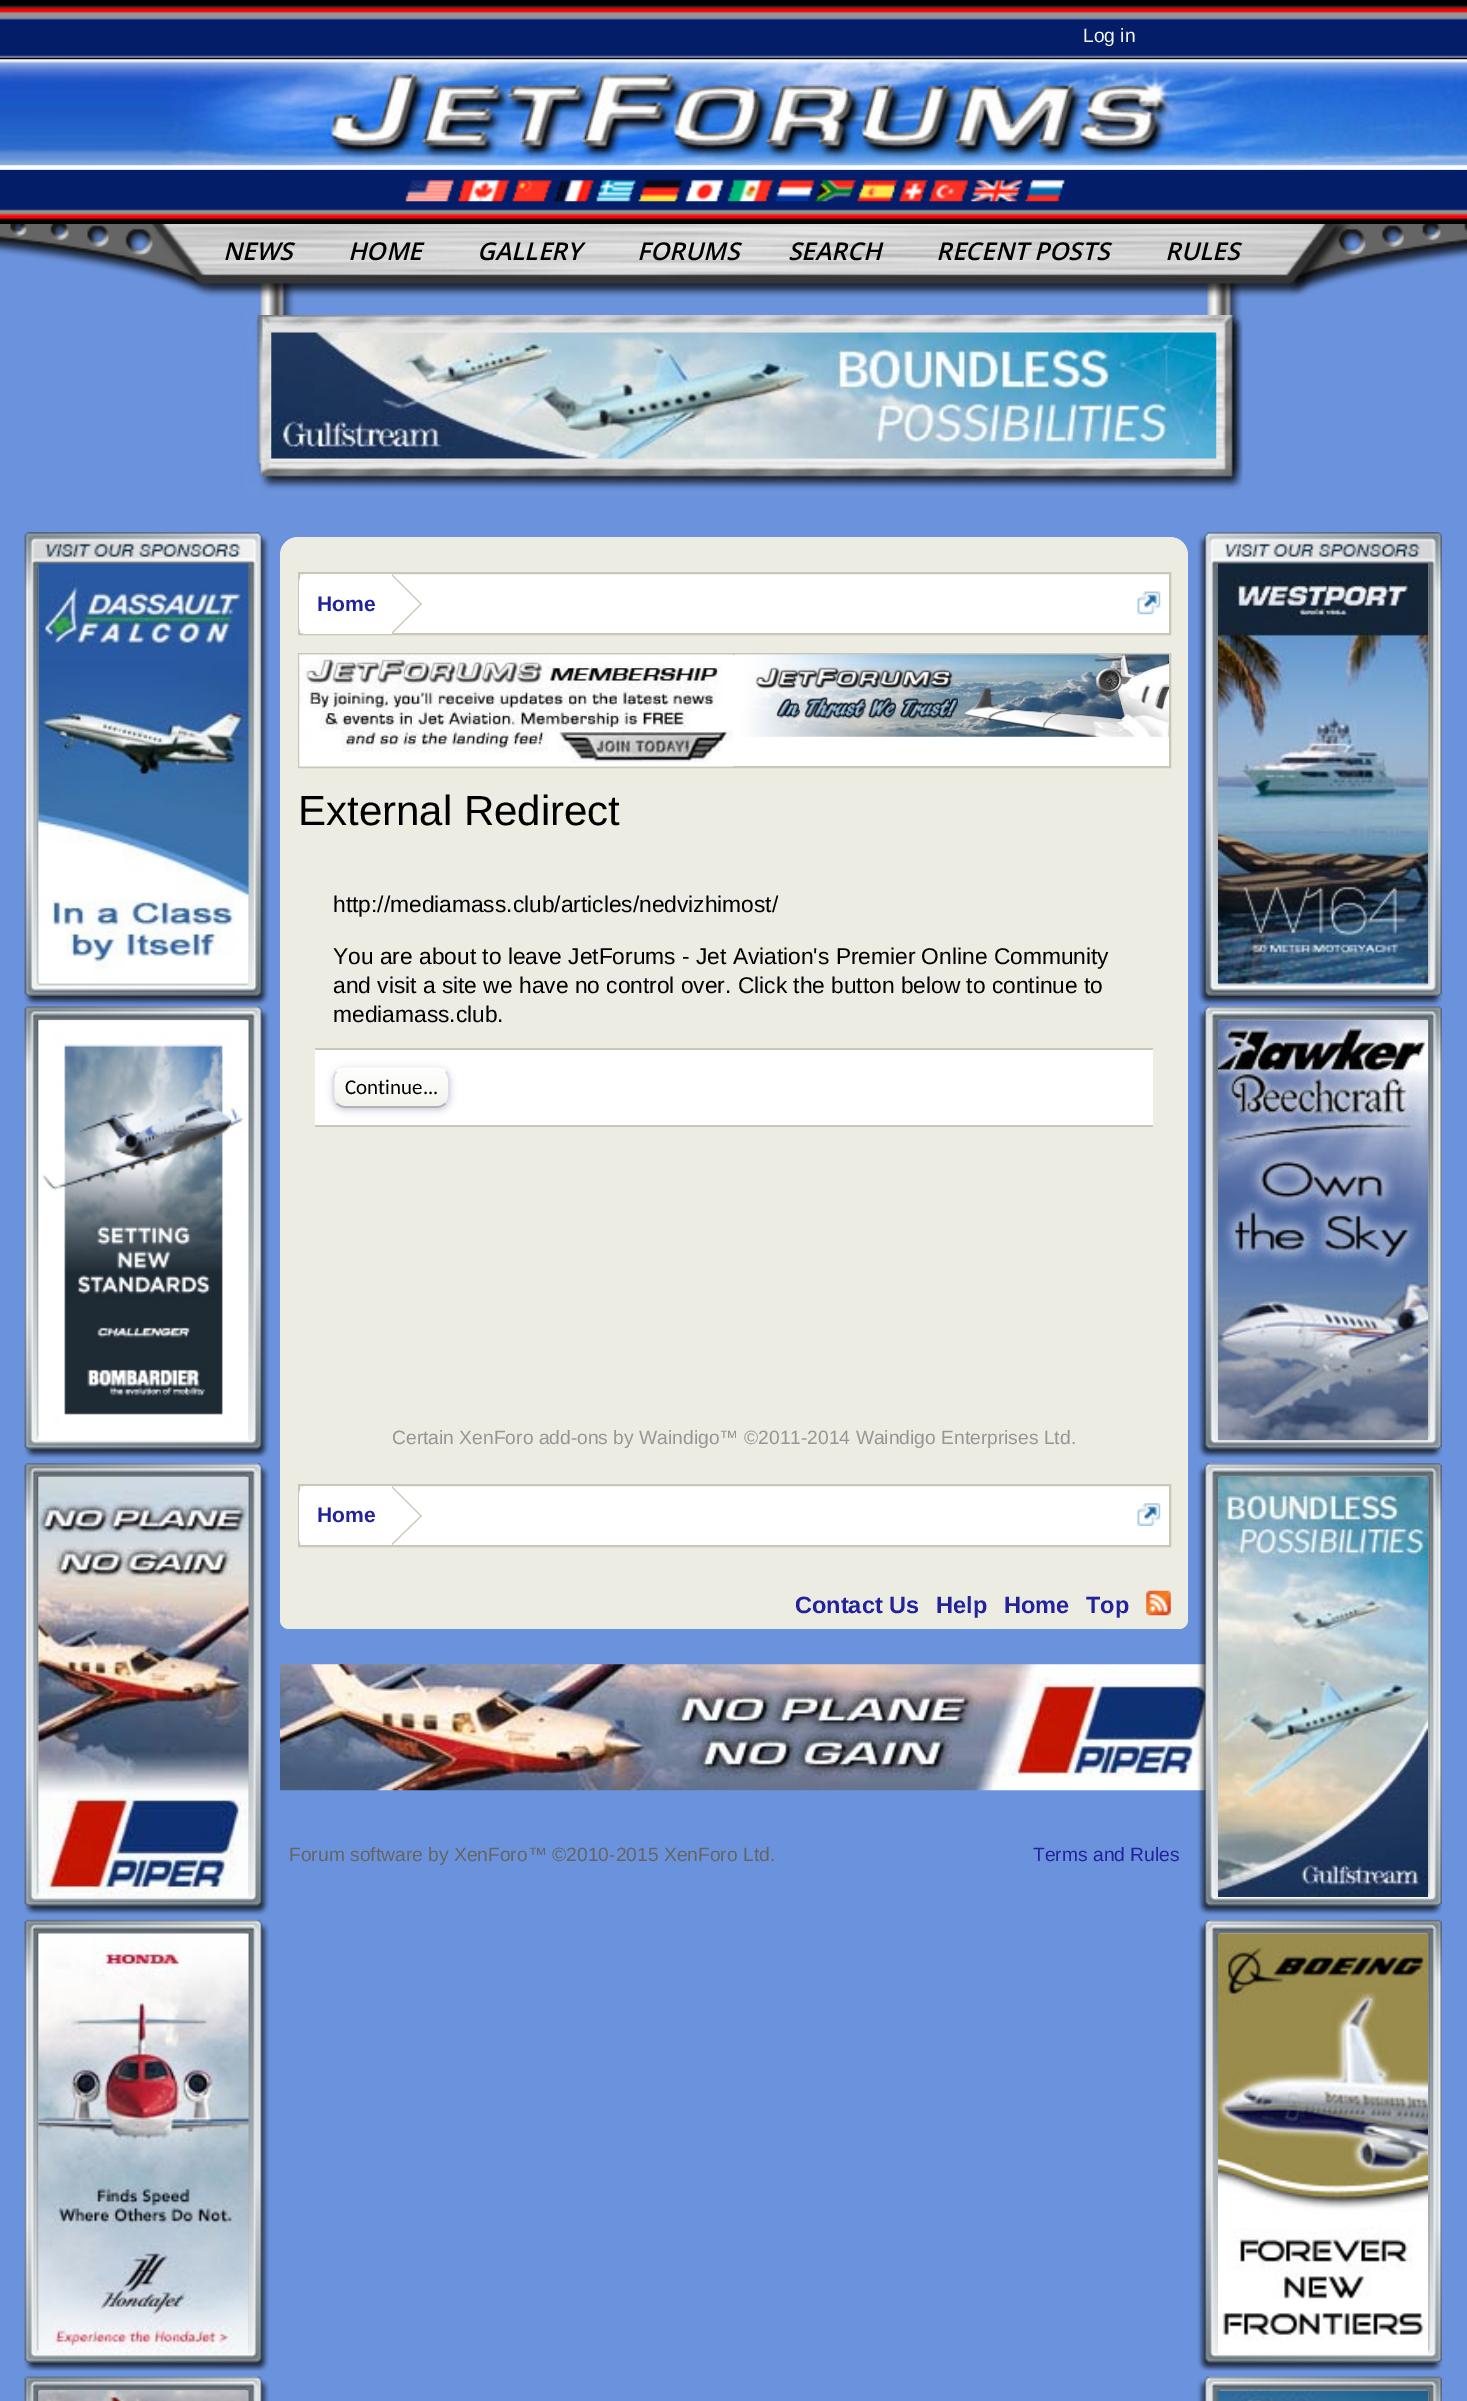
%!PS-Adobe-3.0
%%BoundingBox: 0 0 1467 2401
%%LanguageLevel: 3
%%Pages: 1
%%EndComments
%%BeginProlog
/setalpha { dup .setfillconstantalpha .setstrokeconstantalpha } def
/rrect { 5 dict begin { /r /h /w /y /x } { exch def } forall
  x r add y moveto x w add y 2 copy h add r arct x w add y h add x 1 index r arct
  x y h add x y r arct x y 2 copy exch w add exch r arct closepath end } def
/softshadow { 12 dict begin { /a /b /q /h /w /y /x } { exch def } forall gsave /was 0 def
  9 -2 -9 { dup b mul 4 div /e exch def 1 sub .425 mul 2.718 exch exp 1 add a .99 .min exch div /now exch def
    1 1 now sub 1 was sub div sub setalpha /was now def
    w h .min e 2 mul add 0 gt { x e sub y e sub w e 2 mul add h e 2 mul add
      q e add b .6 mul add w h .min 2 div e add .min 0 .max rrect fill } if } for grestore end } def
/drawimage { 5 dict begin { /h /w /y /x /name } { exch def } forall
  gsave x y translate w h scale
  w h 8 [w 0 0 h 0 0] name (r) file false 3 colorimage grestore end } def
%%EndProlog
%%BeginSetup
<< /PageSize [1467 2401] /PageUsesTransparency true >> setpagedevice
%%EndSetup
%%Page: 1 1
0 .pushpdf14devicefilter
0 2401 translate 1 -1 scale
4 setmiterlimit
0.42 0.576 0.867 setrgbcolor
0 0 1467 2401 rectfill
0 setgray
0 0 1467 60 rectfill
(images/1.raw) 0 5 1467 53 drawimage
(images/5.raw) 0 169 1467 55 drawimage
(images/2.raw) 0 59 735 111 drawimage
(images/4.raw) 735 59 732 111 drawimage
(images/3.raw) 0 59 1467 111 drawimage
(images/6.raw) 405 179 660 23 drawimage
(images/7.raw) 0 224 1467 91 drawimage
(images/8.raw) 245 315 998 180 drawimage
(images/9.raw) 271 332 946 127 drawimage
(images/10.raw) 24 532 245 474 drawimage
(images/11.raw) 38 563 211 421 drawimage
(images/12.raw) 24 1006 245 452 drawimage
(images/13.raw) 38 1020 211 420 drawimage
(images/14.raw) 24 1463 245 452 drawimage
(images/15.raw) 38 1477 211 420 drawimage
(images/16.raw) 24 1919 245 452 drawimage
(images/17.raw) 38 1933 211 421 drawimage
(images/18.raw) 24 2376 245 25 drawimage
(images/19.raw) 38 2390 211 11 drawimage
0.925 0.925 0.886 setrgbcolor
newpath 298 537 moveto 1170 537 lineto 1180 537 1188 545 1188 555 curveto 1188 1582 lineto 280 1582 lineto 280 555 lineto 280 545 288 537 298 537 curveto closepath fill
1 setgray
newpath 299 573 moveto 1170 573 lineto 1170 634 lineto 299 634 lineto closepath gsave fill grestore
0.788 0.784 0.722 setrgbcolor
2 setlinewidth
stroke
gsave
299 574 870 60 rectclip
1 setgray
newpath 308 574 moveto 392 574 lineto 392 635 lineto 308 635 lineto 303 635 299 631 299 626 curveto 299 583 lineto 299 578 303 574 308 574 curveto closepath fill
grestore
newpath 392 634 moveto 392 574 lineto 422 604 lineto closepath fill
1 setgray
newpath 390 634 moveto 390 574 lineto 420 604 lineto closepath fill
(images/20.raw) 1137 591 24 24 drawimage
733 655 436 111 rectfill
0.788 0.784 0.722 setrgbcolor
299 654 871 113 rectstroke
(images/21.raw) 299 654 435 113 drawimage
(images/22.raw) 735 654 434 83 drawimage
315 1048 838 2 rectfill
1 setgray
315 1050 838 75 rectfill
0.788 0.784 0.722 setrgbcolor
315 1125 838 2 rectfill
0.784 0.784 0.824 setrgbcolor
333 1069 117 41 12 3.5 1 softshadow
0.953 0.953 0.925 setrgbcolor
333 1068 117 40 12 rrect fill
(images/23.raw) 333 1069 117 31 drawimage
1 setgray
1.8 setlinewidth
newpath 336.5 1071.5 moveto 339 1069.5 341.5 1068.5 345 1068.5 curveto 437.5 1068.5 lineto 440.5 1068.5 443.5 1069.5 445.5 1071.5 curveto stroke
0.867 0.867 0.922 setrgbcolor
newpath 445.5 1071.5 moveto 450 1076 449 1082 449 1087.5 curveto 449 1093 450 1099.5 445.5 1103.5 curveto stroke
0.702 0.702 0.741 setrgbcolor
newpath 445.5 1103.5 moveto 443.5 1105.5 440.5 1107 437.5 1107 curveto 345 1107 lineto 341.5 1107 339 1105.5 336.5 1103.5 curveto stroke
0.867 0.867 0.922 setrgbcolor
newpath 336.5 1103.5 moveto 332.5 1099.5 333.5 1093 333.5 1087.5 curveto 333.5 1082 332.5 1076 336.5 1071.5 curveto stroke
1 setgray
newpath 299 1485 moveto 1170 1485 lineto 1170 1546 lineto 299 1546 lineto closepath gsave fill grestore
0.788 0.784 0.722 setrgbcolor
2 setlinewidth
stroke
gsave
299 1486 870 59 rectclip
1 setgray
newpath 308 1486 moveto 392 1486 lineto 392 1547 lineto 308 1547 lineto 303 1547 299 1543 299 1538 curveto 299 1495 lineto 299 1490 303 1486 308 1486 curveto closepath fill
grestore
newpath 392 1545 moveto 392 1486 lineto 422 1516 lineto closepath fill
1 setgray
newpath 390 1545 moveto 390 1486 lineto 420 1516 lineto closepath fill
(images/24.raw) 1137 1503 24 23 drawimage
(images/25.raw) 1197 532 245 474 drawimage
(images/26.raw) 1218 563 210 421 drawimage
(images/27.raw) 1197 1006 245 452 drawimage
(images/28.raw) 1218 1020 210 421 drawimage
(images/36.raw) 280 1664 927 127 drawimage
(images/29.raw) 1197 1463 245 452 drawimage
(images/30.raw) 1218 1477 210 420 drawimage
(images/31.raw) 1197 1919 245 452 drawimage
(images/32.raw) 1218 1933 210 421 drawimage
(images/33.raw) 1197 2376 245 25 drawimage
(images/34.raw) 1218 2390 210 11 drawimage
0.925 0.925 0.886 setrgbcolor
newpath 280 1582 moveto 1188 1582 lineto 1188 1620 lineto 1188 1625 1184 1629 1179 1629 curveto 289 1629 lineto 284 1629 280 1625 280 1620 curveto closepath fill
(images/35.raw) 1146 1590 25 26 drawimage
/LiberationSans-Regular [19.25 0 0 -19.25 0 0] selectfont
0.953 0.953 0.925 setrgbcolor
1083 42 moveto (Log in) show
/OpenSans-SemiBoldItalic [24.5 0 0 -24.5 0 0] selectfont
0 setgray
223 260 moveto (NEWS) show
348 260 moveto (HOME) show
477 260 moveto (GALLERY) show
637 260 moveto (FORUMS) show
788 260 moveto (SEARCH) show
936 260 moveto (RECENT POSTS) show
1165 260 moveto (RULES) show
/LiberationSans-Bold [21 0 0 -21 0 0] selectfont
0.133 0.133 0.612 setrgbcolor
317 611 moveto (Home) show
/LiberationSans-Regular [42 0 0 -42 0 0] selectfont
0 setgray
298 825 moveto (External Redirect) show
/LiberationSans-Regular [22.75 0 0 -22.75 0 0] selectfont
333 912 moveto (http://mediamass.club/articles/nedvizhimost/) show
333 964 moveto (You are about to leave JetForums - Jet Aviation's Premier Online Community) show
333 993 moveto (and visit a site we have no control over. Click the button below to continue to) show
333 1022 moveto (mediamass.club.) show
/Carlito-Regular [21 0 0 -21 0 0] selectfont
345 1094 moveto (Continue...) show
/LiberationSans-Regular [19.25 0 0 -19.25 0 0] selectfont
0.588 setgray
392 1444 moveto (Certain XenForo add-ons by Waindigo™ ©2011-2014 Waindigo Enterprises Ltd.) show
/LiberationSans-Bold [21 0 0 -21 0 0] selectfont
0.133 0.133 0.612 setrgbcolor
317 1522 moveto (Home) show
/LiberationSans-Bold [23.5 0 0 -23.5 0 0] selectfont
795 1613 moveto (Contact Us) show
936 1613 moveto (Help) show
1004 1613 moveto (Home) show
1086 1613 moveto (Top) show
/LiberationSans-Regular [19.25 0 0 -19.25 0 0] selectfont
0.392 setgray
289 1861 moveto (Forum software by XenForo™ ©2010-2015 XenForo Ltd.) show
0.133 0.133 0.612 setrgbcolor
1033 1861 moveto (Terms and Rules) show
.poppdf14devicefilter showpage
%%EOF
